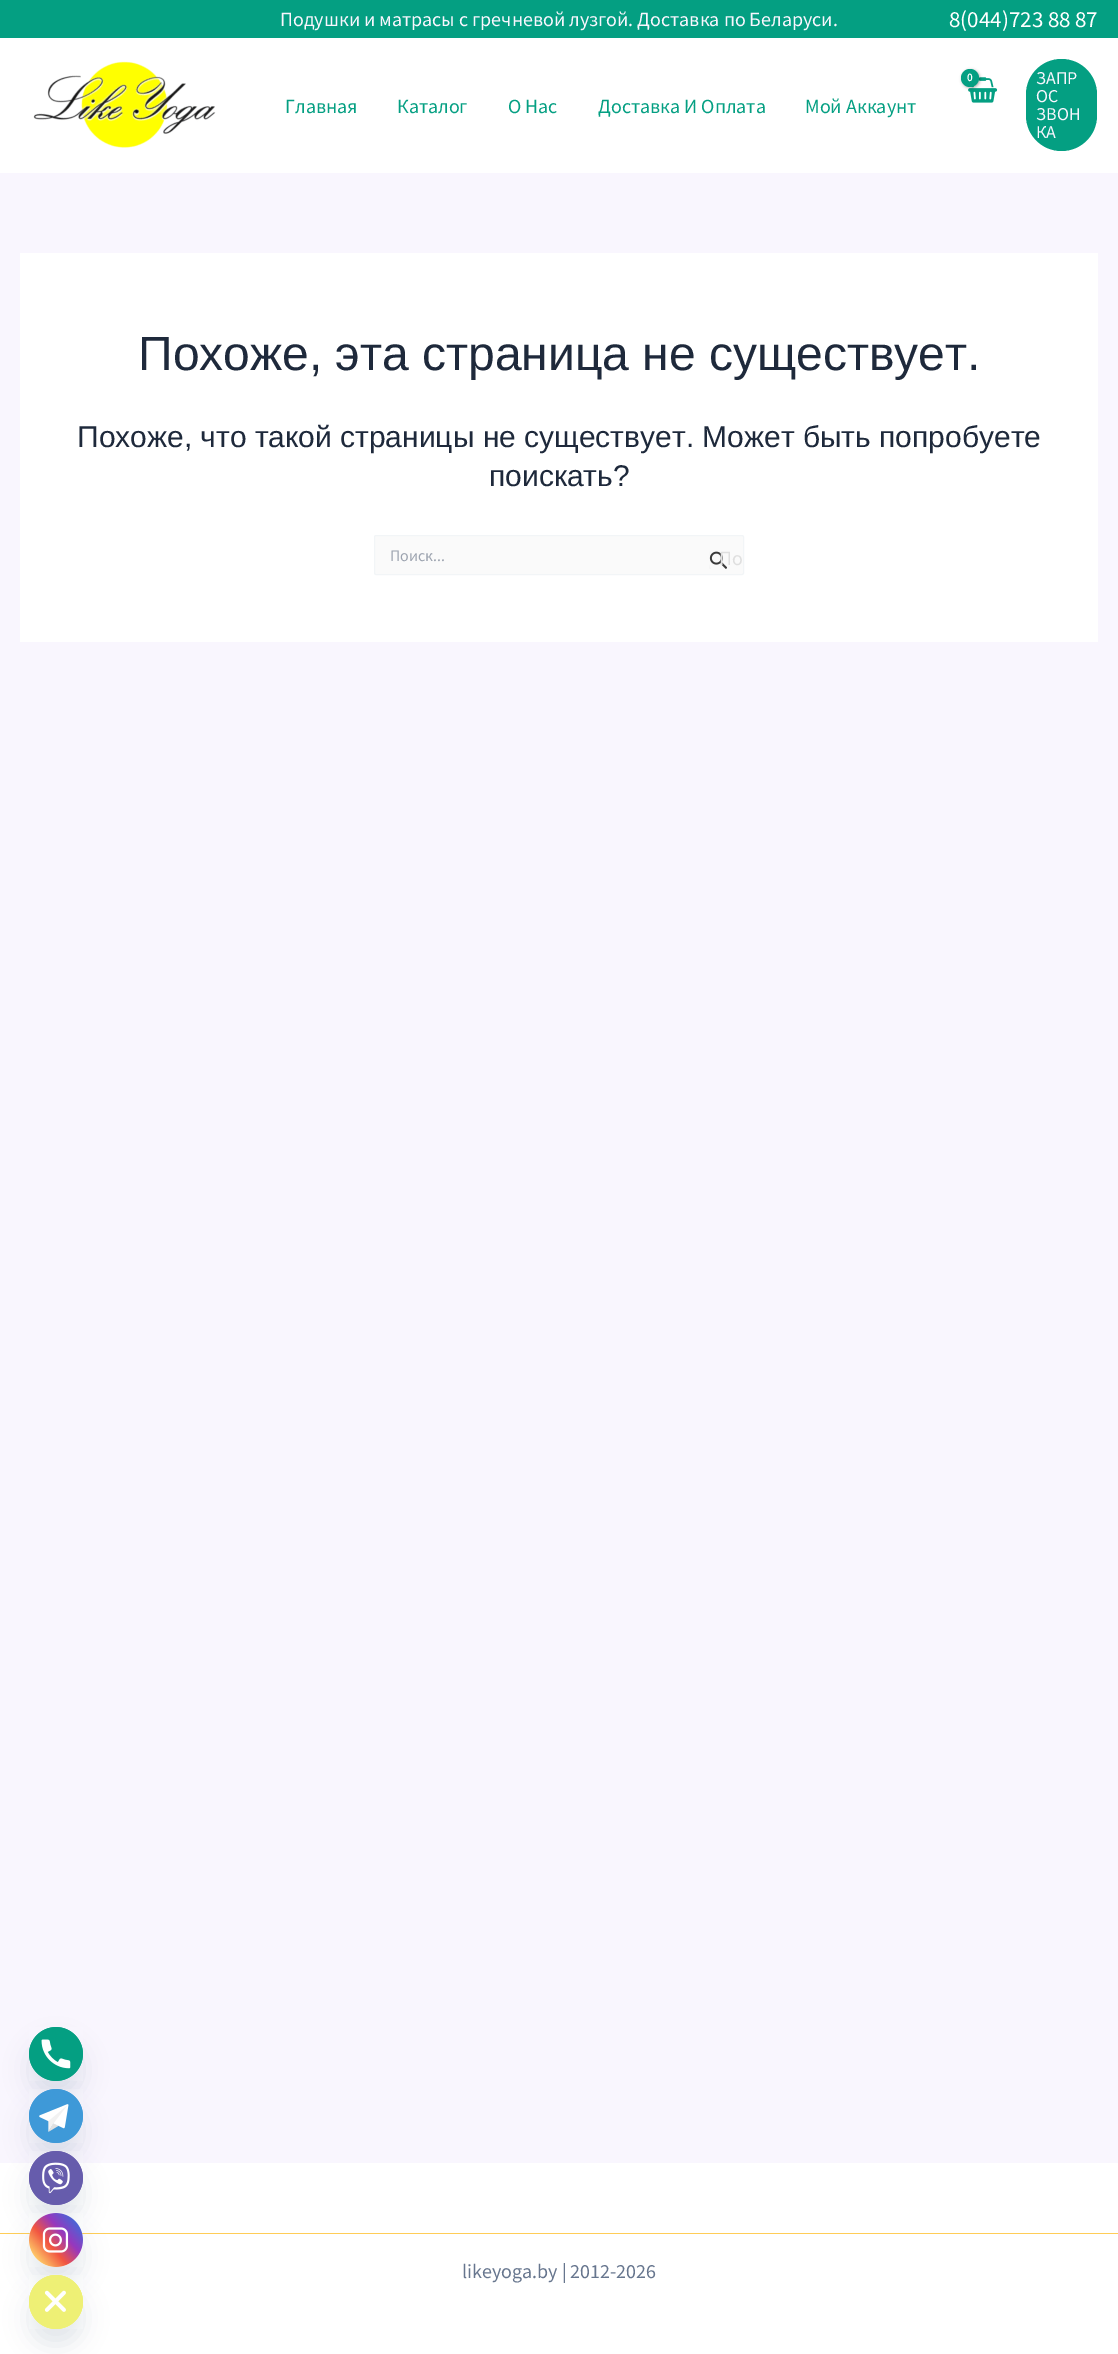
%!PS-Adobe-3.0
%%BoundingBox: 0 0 1118 2354
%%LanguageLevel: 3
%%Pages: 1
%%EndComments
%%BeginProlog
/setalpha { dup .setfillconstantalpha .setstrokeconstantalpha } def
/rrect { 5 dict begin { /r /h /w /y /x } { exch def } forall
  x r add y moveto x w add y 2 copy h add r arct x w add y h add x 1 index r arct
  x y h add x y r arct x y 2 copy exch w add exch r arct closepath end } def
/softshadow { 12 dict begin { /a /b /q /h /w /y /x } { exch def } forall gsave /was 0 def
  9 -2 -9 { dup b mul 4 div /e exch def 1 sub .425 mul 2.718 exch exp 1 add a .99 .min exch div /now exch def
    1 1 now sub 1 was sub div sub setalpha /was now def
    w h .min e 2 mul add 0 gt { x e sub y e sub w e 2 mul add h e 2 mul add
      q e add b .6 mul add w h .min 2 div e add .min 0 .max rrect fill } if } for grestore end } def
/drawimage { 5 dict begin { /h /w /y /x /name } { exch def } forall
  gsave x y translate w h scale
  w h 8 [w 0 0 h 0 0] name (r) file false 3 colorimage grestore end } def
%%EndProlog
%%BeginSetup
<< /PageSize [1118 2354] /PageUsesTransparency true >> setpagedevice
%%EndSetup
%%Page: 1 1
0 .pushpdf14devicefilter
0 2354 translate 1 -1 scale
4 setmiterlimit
0.976 0.965 0.996 setrgbcolor
0 0 1118 2354 rectfill
0.286 0.408 0.494 setrgbcolor
29 2043 54 54 27 12 0.16 softshadow
(images/1.raw) 29 2027 54 54 drawimage
1 setgray
0 2163 1118 70 rectfill
0.286 0.408 0.494 setrgbcolor
29 2105 54 54 27 12 0.16 softshadow
(images/2.raw) 29 2089 54 54 drawimage
1 setgray
0 2234 1118 120 rectfill
1 0.804 0.341 setrgbcolor
0 2233 1118 1 rectfill
0.286 0.408 0.494 setrgbcolor
29 2167 54 54 27 12 0.16 softshadow
(images/3.raw) 29 2151 54 54 drawimage
29 2229 54 54 27 12 0.16 softshadow
(images/4.raw) 29 2213 54 54 drawimage
29 2291 54 54 27 12 0.16 softshadow
(images/5.raw) 29 2275 54 54 drawimage
0.016 0.624 0.51 setrgbcolor
0 0 1118 38 rectfill
1 setgray
0 38 1118 135 rectfill
(images/6.raw) 33 61 183 87 drawimage
(images/7.raw) 968 77 30 26 drawimage
0 setgray
962 70 18 18 9 1.5 0.3 softshadow
0.016 0.624 0.51 setrgbcolor
newpath 970 78 9 0 360 arc closepath fill
1026 59 71 92 35.5 rrect fill
1 setgray
20 253 1078 389 rectfill
0.98 setgray
374.5 535.5 369 39 1.5 rrect gsave fill grestore
0.949 0.961 0.969 setrgbcolor
stroke
(images/8.raw) 709 551 18 18 drawimage
/SourceSansPro-Regular [20 0 0 -20 0 0] selectfont
0.976 0.965 0.996 setrgbcolor
280 26 moveto (Подушки и матрасы с гречневой лузгой. Доставка по Беларуси.) show
/SourceSansPro-Regular [23 0 0 -23 0 0] selectfont
1 setgray
949 27 moveto (8\(044\)723 88 87) show
/SourceSansPro-Regular [20 0 0 -20 0 0] selectfont
0.016 0.624 0.51 setrgbcolor
285 113 moveto (Главная) show
397 113 moveto (Каталог) show
508 113 moveto (О Нас) show
598 113 moveto (Доставка И Оплата) show
805 113 moveto (Мой Аккаунт) show
/SourceSansPro-Bold [11 0 0 -11 0 0] selectfont
1 setgray
967 81 moveto (0) show
/SourceSansPro-Regular [18 0 0 -18 0 0] selectfont
0.976 0.965 0.996 setrgbcolor
1036 84 moveto (ЗАПР) show
1036 102 moveto (ОС) show
1036 120 moveto (ЗВОН) show
1036 138 moveto (КА) show
/LiberationSans-Regular [48 0 0 -48 0 0] selectfont
0.118 0.161 0.231 setrgbcolor
138 370 moveto (Похоже, эта страница не существует.) show
/LiberationSans-Regular [30 0 0 -30 0 0] selectfont
77 447 moveto (Похоже, что такой страницы не существует. Может быть попробуете) show
489 486 moveto (поискать?) show
/SourceSansPro-Regular [16 0 0 -16 0 0] selectfont
0.612 0.639 0.686 setrgbcolor
390 561 moveto (Поиск...) show
/SourceSansPro-Regular [20 0 0 -20 0 0] selectfont
0.875 setgray
719 565 moveto (По) show
0.404 0.463 0.557 setrgbcolor
462 2278 moveto (likeyoga.by | 2012-2026) show
.poppdf14devicefilter showpage
%%EOF
